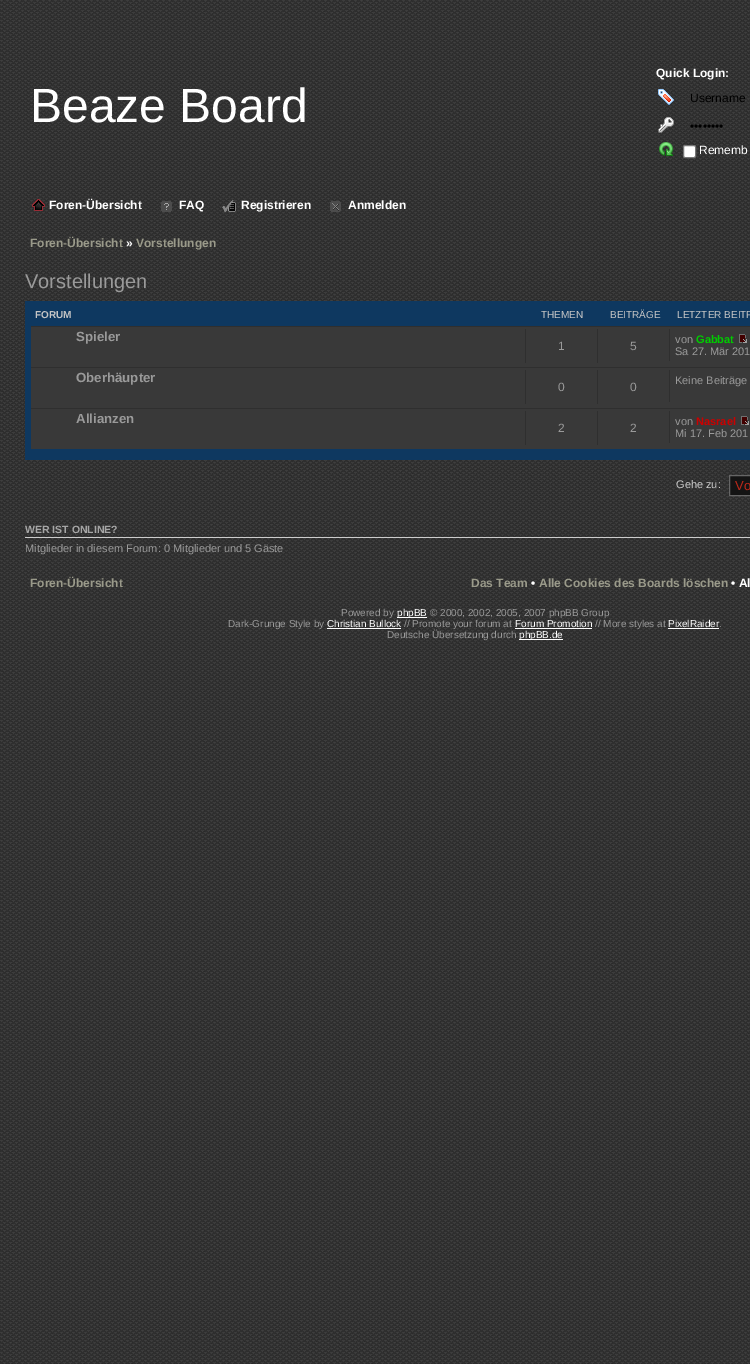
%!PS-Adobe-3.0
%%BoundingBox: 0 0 750 1364
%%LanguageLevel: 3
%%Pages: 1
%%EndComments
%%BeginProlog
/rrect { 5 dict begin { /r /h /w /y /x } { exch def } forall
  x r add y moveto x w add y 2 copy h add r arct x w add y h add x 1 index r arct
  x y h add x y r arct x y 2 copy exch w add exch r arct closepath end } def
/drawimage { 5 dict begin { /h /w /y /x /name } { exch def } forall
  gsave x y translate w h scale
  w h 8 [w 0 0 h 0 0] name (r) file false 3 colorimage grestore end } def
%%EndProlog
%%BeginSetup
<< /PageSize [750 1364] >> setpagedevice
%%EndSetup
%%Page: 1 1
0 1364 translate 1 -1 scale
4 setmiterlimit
1 setgray
0 0 750 1364 rectfill
(images/1.raw) 0 500 750 864 drawimage
(images/2.raw) 0 0 750 500 drawimage
(images/3.raw) 658 89 16 16 drawimage
(images/4.raw) 658 117 16 16 drawimage
(images/5.raw) 659 142 14 14 drawimage
683.5 145.5 12 12 1.5 rrect gsave fill grestore
0.463 setgray
stroke
(images/6.raw) 32 199 13 12 drawimage
(images/7.raw) 161 201 11 11 drawimage
(images/8.raw) 222 200 14 13 drawimage
(images/9.raw) 330 201 11 11 drawimage
0.055 0.22 0.376 setrgbcolor
25 301 725 25 rectfill
25 326 6 123 rectfill
0.224 setgray
31 327 719 122 rectfill
0.184 setgray
31 326 719 1 rectfill
525 329 1 34 rectfill
597 329 1 34 rectfill
669 329 1 32 rectfill
(images/10.raw) 739 334 8 9 drawimage
31 367 719 1 rectfill
525 370 1 34 rectfill
597 370 1 34 rectfill
669 370 1 32 rectfill
31 408 719 1 rectfill
525 411 1 34 rectfill
597 411 1 34 rectfill
669 411 1 32 rectfill
(images/10.raw) 741 416 8 9 drawimage
0.055 0.22 0.376 setrgbcolor
25 449 725 11 rectfill
0.078 setgray
newpath 729.5 475.5 moveto 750.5 475.5 lineto 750.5 495.5 lineto 729.5 495.5 lineto closepath gsave fill grestore
0.4 setgray
stroke
0.8 setgray
25 537 725 1 rectfill
1 setgray
397 617 30 1 rectfill
327 628 74 1 rectfill
515 628 77 1 rectfill
668 628 51 1 rectfill
519 639 44 1 rectfill
/LiberationSans-Regular [48 0 0 -48 0 0] selectfont
30 122 moveto (Beaze Board) show
/LiberationSans-Bold [12 0 0 -12 0 0] selectfont
656 77 moveto (Quick Login:) show
/LiberationSans-Regular [12 0 0 -12 0 0] selectfont
0 setgray
690 102 moveto (Username) show
690 130 moveto (••••••••) show
1 setgray
699 154 moveto (Rememb) show
/LiberationSans-Bold [12 0 0 -12 0 0] selectfont
49 209 moveto (Foren-Übersicht) show
179 209 moveto (FAQ) show
241 209 moveto (Registrieren) show
348 209 moveto (Anmelden) show
0.604 0.604 0.541 setrgbcolor
30 247 moveto (Foren-Übersicht) show
1 setgray
126 247 moveto (») show
0.604 0.604 0.541 setrgbcolor
136 247 moveto (Vorstellungen) show
/LiberationSans-Regular [20 0 0 -20 0 0] selectfont
0.604 setgray
25 288 moveto (Vorstellungen) show
/LiberationSans-Bold [10 0 0 -10 0 0] selectfont
0.773 setgray
35 318 moveto (FORUM) show
/LiberationSans-Regular [10 0 0 -10 0 0] selectfont
541 318 moveto (THEMEN) show
610 318 moveto (BEITRÄGE) show
677 318 moveto (LETZTER BEITR) show
/LiberationSans-Bold [13.25 0 0 -13.25 0 0] selectfont
0.604 setgray
76 341 moveto (Spieler) show
/LiberationSans-Regular [12 0 0 -12 0 0] selectfont
558 350 moveto (1) show
630 350 moveto (5) show
/LiberationSans-Regular [11 0 0 -11 0 0] selectfont
675 343 moveto (von) show
/LiberationSans-Bold [11 0 0 -11 0 0] selectfont
0 0.8 0 setrgbcolor
696 343 moveto (Gabbat) show
/LiberationSans-Regular [11 0 0 -11 0 0] selectfont
0.604 setgray
675 355 moveto (Sa 27. Mär 201) show
/LiberationSans-Bold [13.25 0 0 -13.25 0 0] selectfont
76 382 moveto (Oberhäupter) show
/LiberationSans-Regular [12 0 0 -12 0 0] selectfont
558 391 moveto (0) show
630 391 moveto (0) show
/LiberationSans-Regular [11 0 0 -11 0 0] selectfont
675 384 moveto (Keine Beiträge) show
/LiberationSans-Bold [13.25 0 0 -13.25 0 0] selectfont
76 423 moveto (Allianzen) show
/LiberationSans-Regular [12 0 0 -12 0 0] selectfont
558 432 moveto (2) show
630 432 moveto (2) show
/LiberationSans-Regular [11 0 0 -11 0 0] selectfont
675 425 moveto (von) show
/LiberationSans-Bold [11 0 0 -11 0 0] selectfont
0.8 0 0 setrgbcolor
696 425 moveto (Nasrael) show
/LiberationSans-Regular [11 0 0 -11 0 0] selectfont
0.604 setgray
675 437 moveto (Mi 17. Feb 201) show
0.8 setgray
676 488 moveto (Gehe zu:) show
/LiberationSans-Regular [13 0 0 -13 0 0] selectfont
0.741 0.161 0.102 setrgbcolor
735 490 moveto (Vo) show
/LiberationSans-Bold [10.5 0 0 -10.5 0 0] selectfont
0.651 setgray
25 533 moveto (WER IST ONLINE?) show
/LiberationSans-Regular [11 0 0 -11 0 0] selectfont
0.604 setgray
25 552 moveto (Mitglieder in diesem Forum: 0 Mitglieder und 5 Gäste) show
/LiberationSans-Bold [12 0 0 -12 0 0] selectfont
0.604 0.604 0.541 setrgbcolor
30 587 moveto (Foren-Übersicht) show
471 587 moveto (Das Team) show
1 setgray
531 587 moveto (•) show
0.604 0.604 0.541 setrgbcolor
539 587 moveto (Alle Cookies des Boards löschen) show
1 setgray
731 587 moveto (• Al) show
/LiberationSans-Regular [10 0 0 -10 0 0] selectfont
0.604 setgray
341 616 moveto (Powered by) show
1 setgray
397 616 moveto (phpBB) show
0.604 setgray
430 616 moveto (© 2000, 2002, 2005, 2007 phpBB Group) show
228 627 moveto (Dark-Grunge Style by) show
1 setgray
327 627 moveto (Christian Bullock) show
0.604 setgray
404 627 moveto (// Promote your forum at) show
1 setgray
515 627 moveto (Forum Promotion) show
0.604 setgray
595 627 moveto (// More styles at) show
1 setgray
668 627 moveto (PixelRaider) show
0.604 setgray
719 627 moveto (.) show
387 638 moveto (Deutsche Übersetzung durch) show
1 setgray
519 638 moveto (phpBB.de) show
showpage
%%EOF
